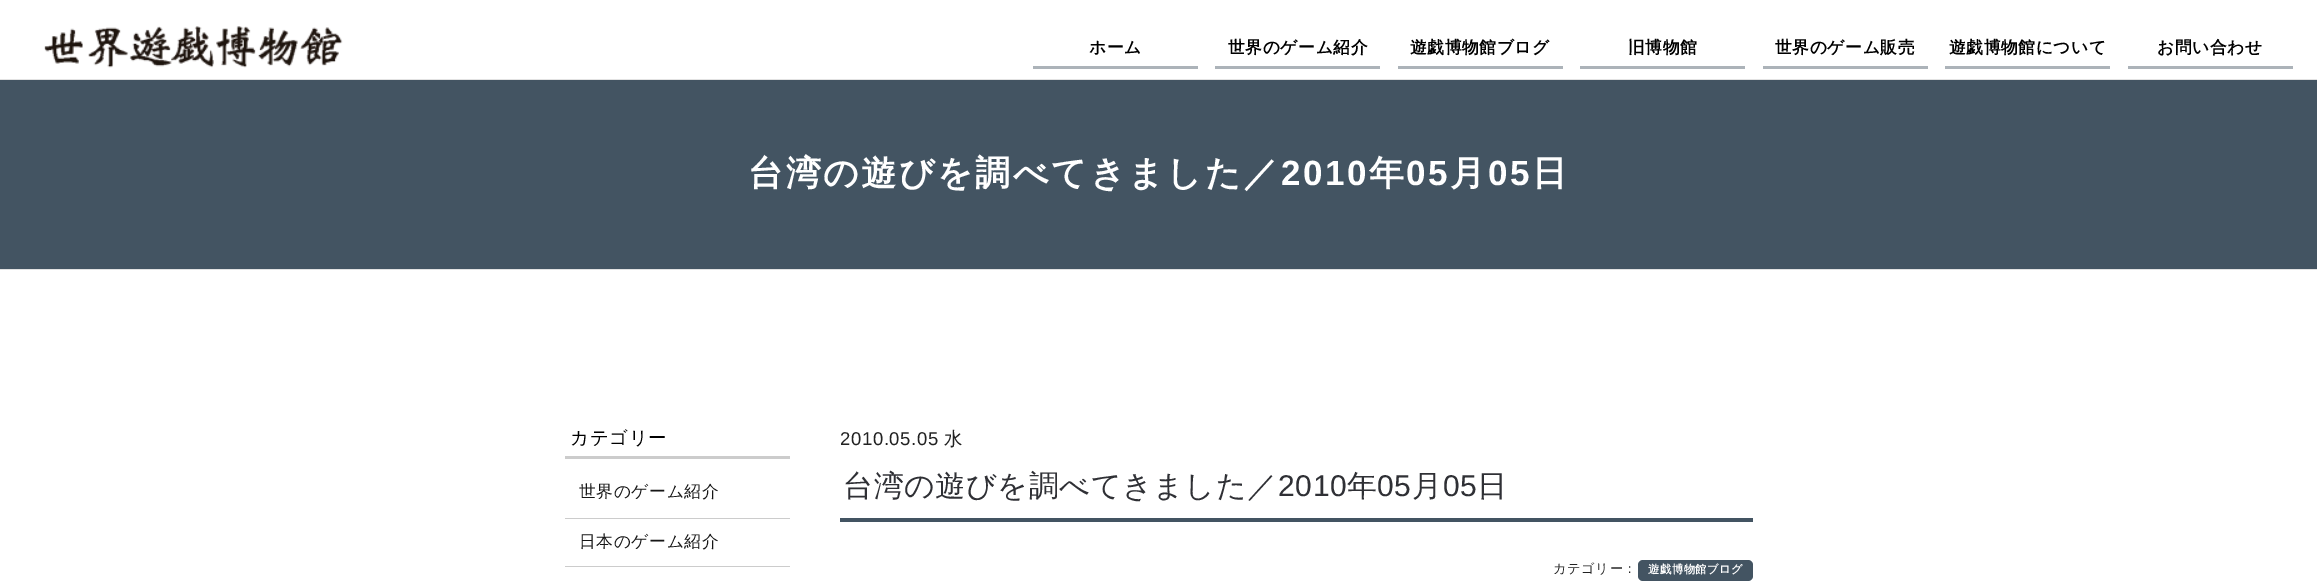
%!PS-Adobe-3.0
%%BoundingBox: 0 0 2317 583
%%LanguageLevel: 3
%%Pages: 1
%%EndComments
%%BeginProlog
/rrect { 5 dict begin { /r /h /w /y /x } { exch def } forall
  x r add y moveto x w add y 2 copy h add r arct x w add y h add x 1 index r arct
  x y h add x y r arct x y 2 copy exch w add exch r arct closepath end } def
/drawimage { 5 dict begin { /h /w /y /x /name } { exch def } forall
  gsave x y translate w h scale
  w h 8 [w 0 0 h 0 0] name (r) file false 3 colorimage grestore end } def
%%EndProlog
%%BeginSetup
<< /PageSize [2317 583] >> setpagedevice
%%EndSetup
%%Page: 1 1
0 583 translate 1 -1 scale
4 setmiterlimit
1 setgray
0 0 2317 583 rectfill
0.886 setgray
0 79 2317 1 rectfill
(images/1.raw) 44 26 299 42 drawimage
0.675 0.702 0.725 setrgbcolor
1033 66 165 3 rectfill
1215 66 165 3 rectfill
1398 66 165 3 rectfill
1580 66 165 3 rectfill
1763 66 165 3 rectfill
1945 66 165 3 rectfill
2128 66 165 3 rectfill
0.263 0.329 0.384 setrgbcolor
0 80 2317 189 rectfill
0.886 setgray
0 269 2317 1 rectfill
0.8 setgray
565 456 225 3 rectfill
565 518 225 1 rectfill
565 566 225 1 rectfill
0.263 0.329 0.384 setrgbcolor
840 518 913 4 rectfill
1638 560 115 21 5 rrect fill
/WenQuanYiZenHei-Bold [16.75 0 0 -16.75 0 0] selectfont
0 setgray
1089 53 moveto 0.6 0 (ホーム) ashow
1228 53 moveto 0.6 0 (世界のゲーム紹介) ashow
1410 53 moveto 0.6 0 (遊戯博物館ブログ) ashow
1628 53 moveto 0.6 0 (旧博物館) ashow
1775 53 moveto 0.6 0 (世界のゲーム販売) ashow
1949 53 moveto 0.6 0 (遊戯博物館について) ashow
2157 53 moveto 0.6 0 (お問い合わせ) ashow
/WenQuanYiZenHei-Bold [35 0 0 -35 0 0] selectfont
1 setgray
748 185 moveto 2.5 0 (台湾の遊びを調べてきました／) ashow
/LiberationSans-Bold [35 0 0 -35 0 0] selectfont
1281 185 moveto 2.5 0 (2010) ashow
/WenQuanYiZenHei-Bold [35 0 0 -35 0 0] selectfont
1369 185 moveto 2.5 0 (年) ashow
/LiberationSans-Bold [35 0 0 -35 0 0] selectfont
1406 185 moveto 2.5 0 (05) ashow
/WenQuanYiZenHei-Bold [35 0 0 -35 0 0] selectfont
1450 185 moveto 2.5 0 (月) ashow
/LiberationSans-Bold [35 0 0 -35 0 0] selectfont
1488 185 moveto 2.5 0 (05) ashow
/WenQuanYiZenHei-Bold [35 0 0 -35 0 0] selectfont
1532 185 moveto 2.5 0 (日) ashow
/WenQuanYiZenHei-Medium [18.5 0 0 -18.5 0 0] selectfont
0 setgray
570 444 moveto 0.6 0 (カテゴリー) ashow
/WenQuanYiZenHei-Medium [16.75 0 0 -16.75 0 0] selectfont
0.086 setgray
579 497 moveto 0.6 0 (世界のゲーム紹介) ashow
579 547 moveto 0.6 0 (日本のゲーム紹介) ashow
/LiberationSans-Regular [18.5 0 0 -18.5 0 0] selectfont
0.133 setgray
840 445 moveto 0.6 0 (2010.05.05) ashow
/WenQuanYiZenHei-Medium [18.5 0 0 -18.5 0 0] selectfont
944 445 moveto 0.6 0 (水) ashow
/WenQuanYiZenHei-Medium [30 0 0 -30 0 0] selectfont
0.184 0.188 0.208 setrgbcolor
843 496 moveto 0.6 0 (台湾の遊びを調べてきました／) ashow
/LiberationSans-Regular [30 0 0 -30 0 0] selectfont
1278 496 moveto 0.6 0 (2010) ashow
/WenQuanYiZenHei-Medium [30 0 0 -30 0 0] selectfont
1347 496 moveto 0.6 0 (年) ashow
/LiberationSans-Regular [30 0 0 -30 0 0] selectfont
1377 496 moveto 0.6 0 (05) ashow
/WenQuanYiZenHei-Medium [30 0 0 -30 0 0] selectfont
1412 496 moveto 0.6 0 (月) ashow
/LiberationSans-Regular [30 0 0 -30 0 0] selectfont
1443 496 moveto 0.6 0 (05) ashow
/WenQuanYiZenHei-Medium [30 0 0 -30 0 0] selectfont
1477 496 moveto 0.6 0 (日) ashow
/WenQuanYiZenHei-Medium [13.25 0 0 -13.25 0 0] selectfont
0.133 setgray
1553 573 moveto 0.6 0 (カテゴリー：) ashow
/WenQuanYiZenHei-Bold [11.25 0 0 -11.25 0 0] selectfont
1 setgray
1648 573 moveto 0.6 0 (遊戯博物館ブログ) ashow
showpage
%%EOF
